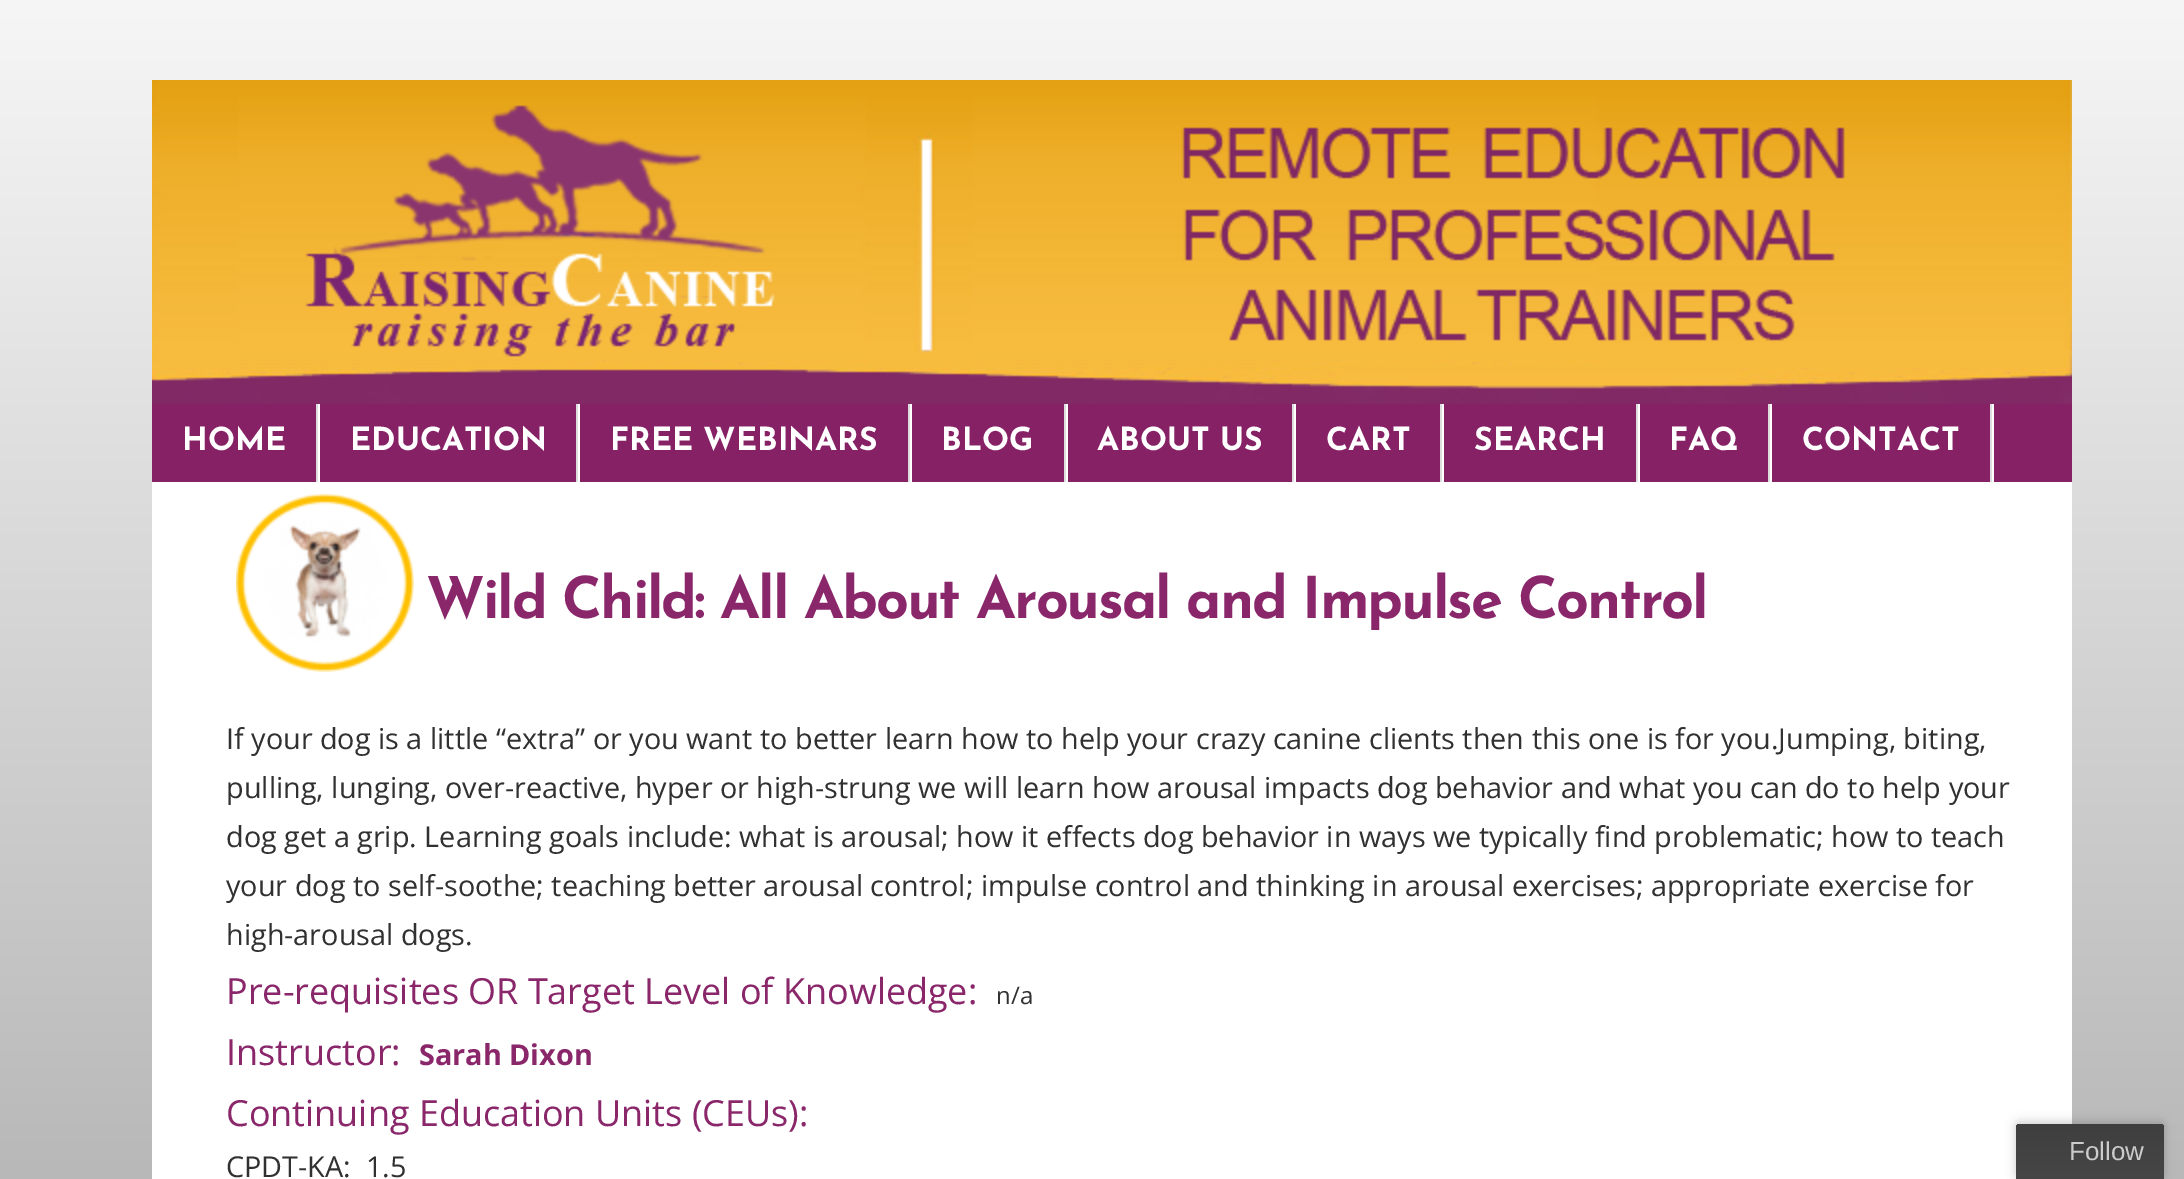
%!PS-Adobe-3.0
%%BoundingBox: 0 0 2184 1179
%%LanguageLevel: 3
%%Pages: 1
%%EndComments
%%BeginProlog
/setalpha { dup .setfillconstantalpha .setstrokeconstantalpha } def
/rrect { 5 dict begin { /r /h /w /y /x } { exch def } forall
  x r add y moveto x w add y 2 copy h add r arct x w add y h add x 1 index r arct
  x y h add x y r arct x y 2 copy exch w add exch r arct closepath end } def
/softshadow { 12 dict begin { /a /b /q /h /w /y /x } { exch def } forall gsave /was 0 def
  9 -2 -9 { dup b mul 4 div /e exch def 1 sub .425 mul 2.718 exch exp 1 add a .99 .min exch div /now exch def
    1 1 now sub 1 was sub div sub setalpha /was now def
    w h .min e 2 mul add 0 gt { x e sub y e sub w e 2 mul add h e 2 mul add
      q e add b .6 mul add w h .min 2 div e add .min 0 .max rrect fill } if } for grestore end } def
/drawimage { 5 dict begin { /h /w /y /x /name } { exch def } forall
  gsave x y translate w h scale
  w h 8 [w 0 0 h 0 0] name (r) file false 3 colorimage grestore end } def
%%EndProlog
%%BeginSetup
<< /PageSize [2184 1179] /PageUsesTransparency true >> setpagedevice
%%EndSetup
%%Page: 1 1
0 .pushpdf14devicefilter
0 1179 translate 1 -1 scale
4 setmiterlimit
1 setgray
0 0 2184 1179 rectfill
gsave newpath 0 0 moveto 2184 0 lineto 2184 1179 lineto 0 1179 lineto closepath clip newpath
<< /ShadingType 2 /ColorSpace /DeviceRGB /Coords [1092 0 1092 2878] /Extend [true true] /Function << /FunctionType 2 /Domain [0 1] /C0 [0.965 0.965 0.965] /C1 [0.373 0.373 0.373] /N 1 >> >> shfill grestore
(images/1.raw) 152 80 1920 324 drawimage
0.525 0.129 0.4 setrgbcolor
152 404 1920 78 rectfill
1 setgray
318 404 2 78 rectfill
0.867 setgray
316 404 2 78 rectfill
1 setgray
578 404 2 78 rectfill
0.867 setgray
576 404 2 78 rectfill
1 setgray
910 404 2 78 rectfill
0.867 setgray
908 404 2 78 rectfill
1 setgray
1066 404 2 78 rectfill
0.867 setgray
1064 404 2 78 rectfill
1 setgray
1294 404 2 78 rectfill
0.867 setgray
1292 404 2 78 rectfill
1 setgray
1442 404 2 78 rectfill
0.867 setgray
1440 404 2 78 rectfill
1 setgray
1638 404 2 78 rectfill
0.867 setgray
1636 404 2 78 rectfill
1 setgray
1770 404 2 78 rectfill
0.867 setgray
1768 404 2 78 rectfill
1 setgray
1992 404 2 78 rectfill
0.867 setgray
1990 404 2 78 rectfill
1 setgray
152 482 1920 697 rectfill
(images/2.raw) 236 494 178 178 drawimage
0 setgray
2016 1122 148 56 4 5 0.2 softshadow
gsave newpath 2020 1124 moveto 2160 1124 lineto 2162 1124 2164 1126 2164 1128 curveto 2164 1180 lineto 2016 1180 lineto 2016 1128 lineto 2016 1126 2018 1124 2020 1124 curveto closepath clip newpath
<< /ShadingType 2 /ColorSpace /DeviceRGB /Coords [2016 1124 2016 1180] /Extend [true true] /Function << /FunctionType 2 /Domain [0 1] /C0 [0.247 0.247 0.247] /C1 [0.275 0.275 0.275] /N 1 >> >> shfill grestore
/JosefinSans-Bold [31.75 0 0 -31.75 0 0] selectfont
1 setgray
182 450 moveto (HOME) show
350 450 moveto (EDUCATION) show
610 450 moveto (FREE WEBINARS) show
941 450 moveto (BLOG) show
1097 450 moveto (ABOUT US) show
1326 450 moveto (CART) show
1474 450 moveto (SEARCH) show
1669 450 moveto (FAQ) show
1802 450 moveto (CONTACT) show
/JosefinSans-Bold [57.6 0 0 -57.6 0 0] selectfont
0.541 0.149 0.416 setrgbcolor
426 618 moveto -2 0 (Wild Child: All About Arousal and Impulse Control) ashow
/OpenSans-Regular [28.8 0 0 -28.8 0 0] selectfont
0.192 setgray
226 749 moveto (If your dog is a little “extra” or you want to better learn how to help your crazy canine clients then this one is for you.Jumping, biting,) show
226 798 moveto (pulling, lunging, over-reactive, hyper or high-strung we will learn how arousal impacts dog behavior and what you can do to help your) show
226 847 moveto (dog get a grip. Learning goals include: what is arousal; how it effects dog behavior in ways we typically find problematic; how to teach) show
226 896 moveto (your dog to self-soothe; teaching better arousal control; impulse control and thinking in arousal exercises; appropriate exercise for) show
226 945 moveto (high-arousal dogs.) show
/OpenSans-Regular [36 0 0 -36 0 0] selectfont
0.541 0.149 0.416 setrgbcolor
226 1004 moveto (Pre-requisites OR Target Level of Knowledge:) show
/OpenSans-Regular [24 0 0 -24 0 0] selectfont
0.192 setgray
996 1004 moveto (n/a) show
/OpenSans-Regular [36 0 0 -36 0 0] selectfont
0.541 0.149 0.416 setrgbcolor
226 1065 moveto (Instructor:) show
/OpenSans-Bold [28.8 0 0 -28.8 0 0] selectfont
419 1065 moveto (Sarah Dixon) show
/OpenSans-Regular [36 0 0 -36 0 0] selectfont
226 1126 moveto (Continuing Education Units \(CEUs\):) show
/OpenSans-Regular [28.8 0 0 -28.8 0 0] selectfont
0.192 setgray
226 1177 moveto (CPDT-KA:  1.5) show
/LiberationSans-Regular [26 0 0 -26 0 0] selectfont
0.8 setgray
2069 1160 moveto (Follow) show
.poppdf14devicefilter showpage
%%EOF
